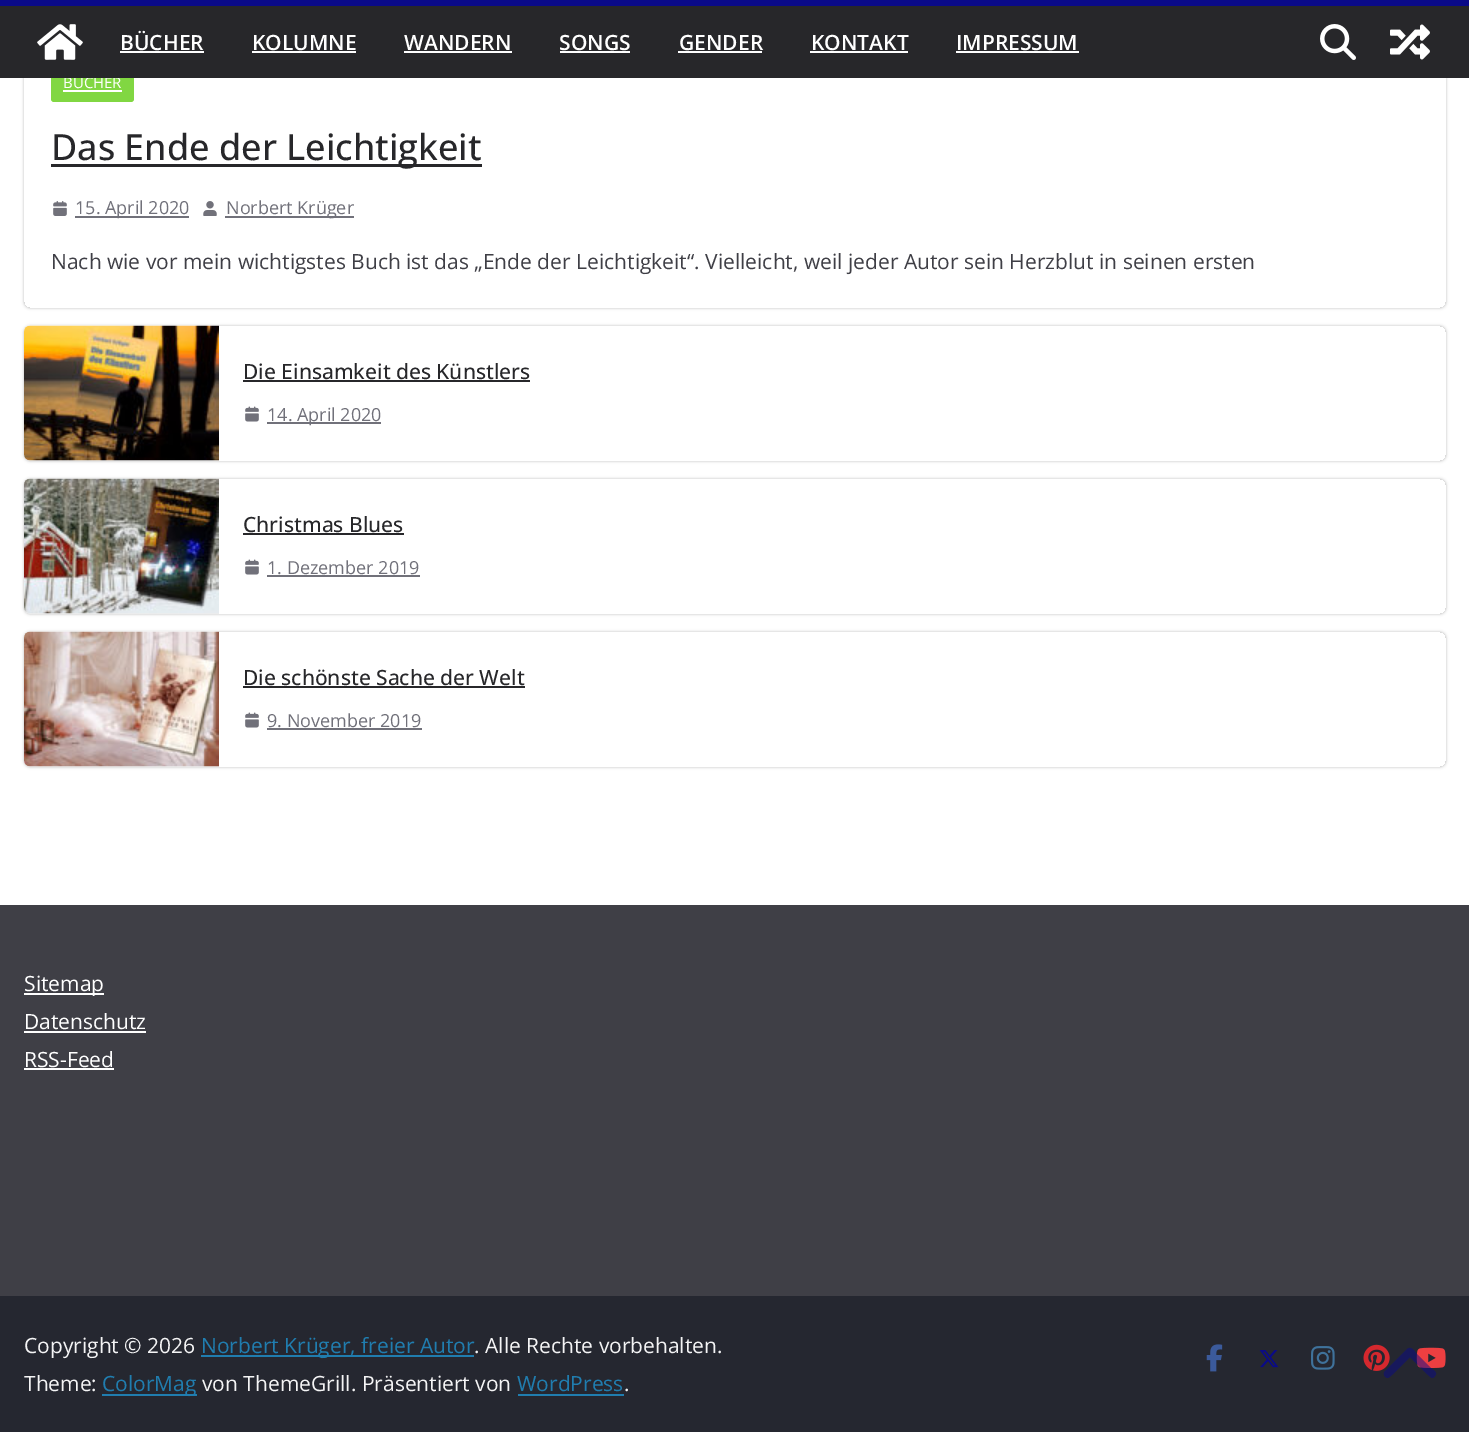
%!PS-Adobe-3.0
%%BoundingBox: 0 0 1469 1432
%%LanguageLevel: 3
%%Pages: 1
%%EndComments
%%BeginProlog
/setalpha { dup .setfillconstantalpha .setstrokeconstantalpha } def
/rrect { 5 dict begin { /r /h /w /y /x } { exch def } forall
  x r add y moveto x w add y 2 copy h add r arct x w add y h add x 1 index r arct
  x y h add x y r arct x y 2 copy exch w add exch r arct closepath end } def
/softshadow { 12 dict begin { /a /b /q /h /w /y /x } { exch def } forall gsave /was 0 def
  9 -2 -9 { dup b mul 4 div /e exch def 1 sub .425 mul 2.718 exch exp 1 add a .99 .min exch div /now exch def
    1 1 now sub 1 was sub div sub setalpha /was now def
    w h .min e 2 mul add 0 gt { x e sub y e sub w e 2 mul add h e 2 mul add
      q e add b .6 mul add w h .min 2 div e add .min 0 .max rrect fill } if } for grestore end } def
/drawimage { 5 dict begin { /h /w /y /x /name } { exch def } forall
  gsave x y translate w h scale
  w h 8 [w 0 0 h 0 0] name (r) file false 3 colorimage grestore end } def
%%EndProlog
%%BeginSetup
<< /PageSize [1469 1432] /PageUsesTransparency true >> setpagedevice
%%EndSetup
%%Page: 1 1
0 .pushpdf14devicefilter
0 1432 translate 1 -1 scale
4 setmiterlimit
1 setgray
0 0 1469 1432 rectfill
gsave
newpath 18 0 moveto 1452 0 lineto 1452 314 lineto 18 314 lineto closepath 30 -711 moveto 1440 -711 lineto 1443.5 -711 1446 -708.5 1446 -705 curveto 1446 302 lineto 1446 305.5 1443.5 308 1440 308 curveto 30 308 lineto 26.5 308 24 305.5 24 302 curveto 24 -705 lineto 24 -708.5 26.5 -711 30 -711 curveto closepath eoclip newpath
0 setgray
24 -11 1422 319 6 1.5 0.24 softshadow
grestore
0.039 0.039 0.533 setrgbcolor
0 0 1469 6 rectfill
0.506 0.843 0.259 setrgbcolor
51 63 83 39 3 rrect fill
1 setgray
63 90 59 2 rectfill
0.153 0.153 0.165 setrgbcolor
51 164 431 3 rectfill
(images/4.raw) 53 201 14 15 drawimage
0.443 0.443 0.478 setrgbcolor
75 216 114 2 rectfill
(images/5.raw) 203 201 14 15 drawimage
225 216 129 2 rectfill
gsave
newpath 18 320 moveto 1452 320 lineto 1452 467 lineto 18 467 lineto closepath 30 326 moveto 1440 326 lineto 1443.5 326 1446 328.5 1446 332 curveto 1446 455 lineto 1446 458.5 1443.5 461 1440 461 curveto 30 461 lineto 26.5 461 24 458.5 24 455 curveto 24 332 lineto 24 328.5 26.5 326 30 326 curveto closepath eoclip newpath
0 setgray
24 326 1422 135 6 1.5 0.24 softshadow
grestore
(images/6.raw) 24 325 195 136 drawimage
0.153 0.153 0.165 setrgbcolor
243 380 287 2 rectfill
(images/7.raw) 245 406 14 16 drawimage
0.443 0.443 0.478 setrgbcolor
267 422 114 2 rectfill
gsave
newpath 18 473 moveto 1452 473 lineto 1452 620 lineto 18 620 lineto closepath 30 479 moveto 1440 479 lineto 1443.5 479 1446 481.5 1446 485 curveto 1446 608 lineto 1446 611.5 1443.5 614 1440 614 curveto 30 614 lineto 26.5 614 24 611.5 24 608 curveto 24 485 lineto 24 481.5 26.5 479 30 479 curveto closepath eoclip newpath
0 setgray
24 479 1422 135 6 1.5 0.24 softshadow
grestore
(images/8.raw) 24 478 195 136 drawimage
0.153 0.153 0.165 setrgbcolor
243 533 161 2 rectfill
(images/7.raw) 245 559 14 16 drawimage
0.443 0.443 0.478 setrgbcolor
267 575 153 2 rectfill
gsave
newpath 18 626 moveto 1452 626 lineto 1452 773 lineto 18 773 lineto closepath 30 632 moveto 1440 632 lineto 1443.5 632 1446 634.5 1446 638 curveto 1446 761 lineto 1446 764.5 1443.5 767 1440 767 curveto 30 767 lineto 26.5 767 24 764.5 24 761 curveto 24 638 lineto 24 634.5 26.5 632 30 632 curveto closepath eoclip newpath
0 setgray
24 632 1422 135 6 1.5 0.24 softshadow
grestore
(images/9.raw) 24 631 195 136 drawimage
0.153 0.153 0.165 setrgbcolor
243 686 282 2 rectfill
(images/7.raw) 245 712 14 16 drawimage
0.443 0.443 0.478 setrgbcolor
267 728 155 2 rectfill
0.247 0.247 0.275 setrgbcolor
0 905 1469 391 rectfill
1 setgray
24 993 80 2 rectfill
24 1031 122 2 rectfill
24 1068 90 2 rectfill
0.145 0.153 0.188 setrgbcolor
0 1296 1469 136 rectfill
0.125 0.49 0.686 setrgbcolor
201 1355 273 2 rectfill
102 1394 95 2 rectfill
518 1394 106 2 rectfill
(images/10.raw) 1206 1344 17 28 drawimage
(images/11.raw) 1259 1350 20 18 drawimage
(images/12.raw) 1311 1346 24 24 drawimage
(images/13.raw) 1363 1344 27 27 drawimage
(images/14.raw) 1416 1347 30 21 drawimage
0.5 setalpha
0.039 0.039 0.533 setrgbcolor
newpath 1407 1349 moveto 1411 1346 1414 1350 1416 1353 curveto 1431 1368 lineto 1434 1370 1438 1373 1435 1376 curveto 1435 1377 1433 1378 1432 1378 curveto 1429 1377 1413 1360 1410 1357 curveto 1407 1360 1391 1377 1388 1378 curveto 1385 1378 1382 1374 1385 1371 curveto closepath fill
/OpenSans-Regular [15 0 0 -15 0 0] selectfont
1 setalpha
1 setgray
63 88 moveto (BÜCHER) show
0.153 0.153 0.165 setrgbcolor
0 6 1469 72 rectfill
/OpenSans-SemiBold [21 0 0 -21 0 0] selectfont
1 setgray
956 50 moveto (IMPRESSUM) show
956 51 123 2 rectfill
811 50 moveto (KONTAKT) show
810 51 98 2 rectfill
679 50 moveto (GENDER) show
678 51 84 2 rectfill
559 50 moveto (SONGS) show
560 51 70 2 rectfill
404 50 moveto (WANDERN) show
404 51 108 2 rectfill
252 50 moveto (KOLUMNE) show
252 51 104 2 rectfill
120 50 moveto (BÜCHER) show
120 51 84 2 rectfill
(images/2.raw) 1320 24 36 36 drawimage
(images/3.raw) 1390 24 40 36 drawimage
(images/1.raw) 37 24 46 36 drawimage
/OpenSans-Medium [36 0 0 -36 0 0] selectfont
0.153 0.153 0.165 setrgbcolor
51 160 moveto (Das Ende der Leichtigkeit) show
/OpenSans-Regular [18 0 0 -18 0 0] selectfont
0.443 0.443 0.478 setrgbcolor
75 214 moveto (15. April 2020) show
226 214 moveto (Norbert Krüger) show
/OpenSans-Regular [21 0 0 -21 0 0] selectfont
0.247 0.247 0.275 setrgbcolor
51 269 moveto (Nach wie vor mein wichtigstes Buch ist das „Ende der Leichtigkeit“. Vielleicht, weil jeder Autor sein Herzblut in seinen ersten) show
/OpenSans-Medium [21 0 0 -21 0 0] selectfont
0.153 0.153 0.165 setrgbcolor
243 379 moveto (Die Einsamkeit des Künstlers) show
/OpenSans-Regular [18 0 0 -18 0 0] selectfont
0.443 0.443 0.478 setrgbcolor
267 421 moveto (14. April 2020) show
/OpenSans-Medium [21 0 0 -21 0 0] selectfont
0.153 0.153 0.165 setrgbcolor
243 532 moveto (Christmas Blues) show
/OpenSans-Regular [18 0 0 -18 0 0] selectfont
0.443 0.443 0.478 setrgbcolor
267 574 moveto (1. Dezember 2019) show
/OpenSans-Medium [21 0 0 -21 0 0] selectfont
0.153 0.153 0.165 setrgbcolor
243 685 moveto (Die schönste Sache der Welt) show
/OpenSans-Regular [18 0 0 -18 0 0] selectfont
0.443 0.443 0.478 setrgbcolor
267 727 moveto (9. November 2019) show
/OpenSans-Regular [21 0 0 -21 0 0] selectfont
1 setgray
24 991 moveto (Sitemap) show
24 1029 moveto (Datenschutz) show
24 1067 moveto (RSS-Feed) show
0.957 0.957 0.961 setrgbcolor
24 1353 moveto (Copyright © 2026) show
0.125 0.49 0.686 setrgbcolor
201 1353 moveto (Norbert Krüger, freier Autor) show
0.957 0.957 0.961 setrgbcolor
474 1353 moveto (. Alle Rechte vorbehalten.) show
24 1391 moveto (Theme:) show
0.125 0.49 0.686 setrgbcolor
102 1391 moveto (ColorMag) show
0.957 0.957 0.961 setrgbcolor
202 1391 moveto (von ThemeGrill. Präsentiert von) show
0.125 0.49 0.686 setrgbcolor
517 1391 moveto (WordPress) show
0.957 0.957 0.961 setrgbcolor
624 1391 moveto (.) show
.poppdf14devicefilter showpage
%%EOF
